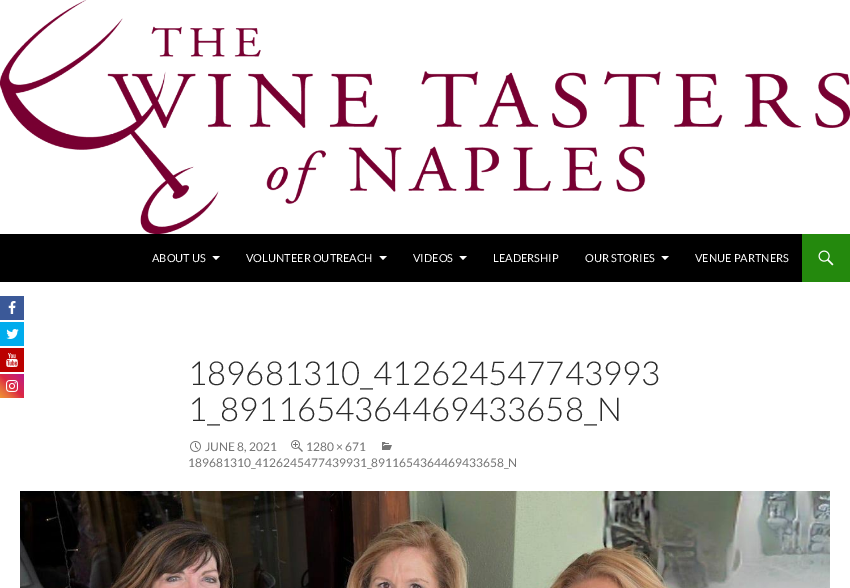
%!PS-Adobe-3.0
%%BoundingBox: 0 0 850 588
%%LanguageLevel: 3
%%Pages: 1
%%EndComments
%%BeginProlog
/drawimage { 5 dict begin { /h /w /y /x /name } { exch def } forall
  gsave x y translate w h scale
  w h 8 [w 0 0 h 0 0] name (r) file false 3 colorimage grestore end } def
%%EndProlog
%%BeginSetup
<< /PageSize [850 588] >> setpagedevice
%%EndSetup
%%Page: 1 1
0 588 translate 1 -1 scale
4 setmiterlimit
1 setgray
0 0 850 588 rectfill
0.231 0.349 0.596 setrgbcolor
0 296 24 24 rectfill
(images/1.raw) 8 301 8 13 drawimage
0 0.675 0.929 setrgbcolor
0 322 24 24 rectfill
(images/2.raw) 6 329 13 10 drawimage
0.733 0 0 setrgbcolor
0 348 24 24 rectfill
(images/3.raw) 6 353 12 14 drawimage
gsave newpath 0 374 moveto 24 374 lineto 24 398 lineto 0 398 lineto closepath clip newpath
<< /ShadingType 2 /ColorSpace /DeviceRGB /Coords [0 398 24 374] /Extend [true true] /Function << /FunctionType 3 /Domain [0 1] /Functions [<< /FunctionType 2 /Domain [0 1] /C0 [0.941 0.58 0.2] /C1 [0.902 0.408 0.235] /N 1 >> << /FunctionType 2 /Domain [0 1] /C0 [0.902 0.408 0.235] /C1 [0.863 0.153 0.263] /N 1 >> << /FunctionType 2 /Domain [0 1] /C0 [0.863 0.153 0.263] /C1 [0.8 0.137 0.4] /N 1 >> << /FunctionType 2 /Domain [0 1] /C0 [0.8 0.137 0.4] /C1 [0.737 0.094 0.533] /N 1 >>] /Bounds [0.25 0.5 0.75] /Encode [0 1 0 1 0 1 0 1] >> >> shfill grestore
(images/4.raw) 6 380 12 12 drawimage
(images/5.raw) 0 0 850 234 drawimage
0 setgray
0 234 802 48 rectfill
1 setgray
newpath 212.5 256 moveto 216 260 lineto 220 256 lineto closepath fill
newpath 379.5 256 moveto 383 260 lineto 387 256 lineto closepath fill
newpath 459.5 256 moveto 463 260 lineto 467 256 lineto closepath fill
newpath 661.5 256 moveto 665 260 lineto 669 256 lineto closepath fill
0.141 0.537 0.051 setrgbcolor
802 234 48 48 rectfill
(images/6.raw) 818 250 16 16 drawimage
(images/7.raw) 190 441 11 11 drawimage
(images/8.raw) 291 440 12 12 drawimage
(images/9.raw) 382 442 10 8 drawimage
(images/10.raw) 20 491 810 97 drawimage
/Lato-Regular [11 0 0 -11 0 0] selectfont
1 setgray
152 262 moveto (ABOUT US) show
246 262 moveto (VOLUNTEER OUTREACH) show
413 262 moveto (VIDEOS) show
493 262 moveto (LEADERSHIP) show
585 262 moveto (OUR STORIES) show
695 262 moveto (VENUE PARTNERS) show
/Lato-Light [33 0 0 -33 0 0] selectfont
0.169 setgray
188 385 moveto (189681310_412624547743993) show
188 421 moveto (1_8911654364469433658_N) show
/Lato-Regular [12 0 0 -12 0 0] selectfont
0.463 setgray
205 451 moveto (JUNE 8, 2021) show
306 451 moveto (1280 × 671) show
188 467 moveto (189681310_4126245477439931_8911654364469433658_N) show
showpage
%%EOF
